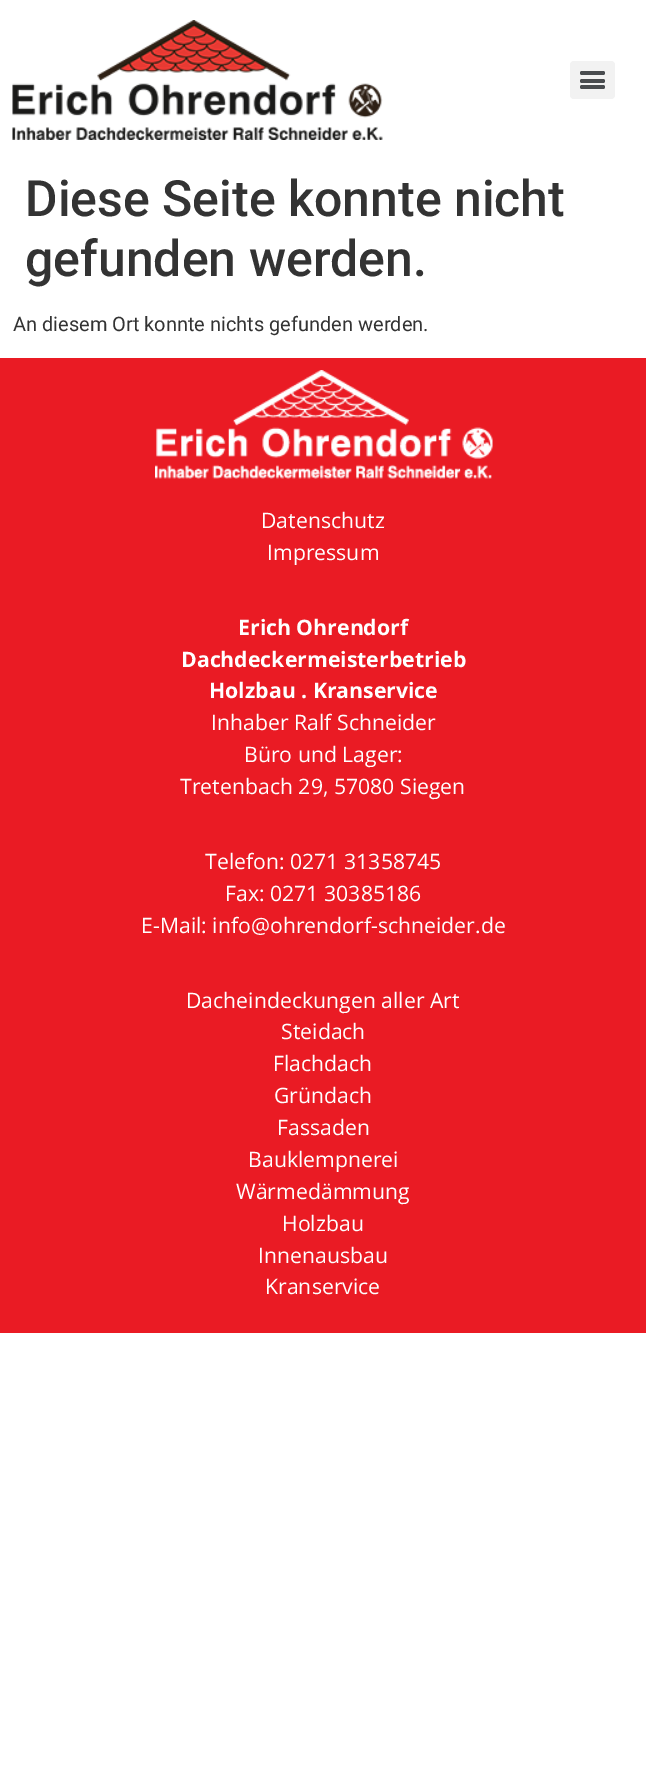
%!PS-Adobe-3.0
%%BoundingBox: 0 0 646 1771
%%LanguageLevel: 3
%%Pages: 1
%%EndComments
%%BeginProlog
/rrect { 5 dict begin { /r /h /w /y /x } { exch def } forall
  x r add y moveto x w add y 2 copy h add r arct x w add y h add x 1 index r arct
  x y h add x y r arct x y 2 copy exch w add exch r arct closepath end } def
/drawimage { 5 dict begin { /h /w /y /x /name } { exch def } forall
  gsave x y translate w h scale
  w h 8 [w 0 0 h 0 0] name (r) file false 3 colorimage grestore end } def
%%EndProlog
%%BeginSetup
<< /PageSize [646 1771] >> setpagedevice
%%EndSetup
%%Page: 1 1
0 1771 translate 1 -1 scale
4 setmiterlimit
1 setgray
0 0 646 1771 rectfill
(images/1.raw) 12 20 371 120 drawimage
0.949 setgray
570 61 45 38 4 rrect fill
0.286 0.298 0.31 setrgbcolor
580 79 25 4 2 rrect fill
580 71 25 4 2 rrect fill
580 85 25 4 2 rrect fill
0.918 0.106 0.141 setrgbcolor
0 358 646 975 rectfill
(images/2.raw) 155 370 338 109 drawimage
/Roboto-Medium [50 0 0 -50 0 0] selectfont
0.2 setgray
25 216 moveto (Diese Seite konnte nicht) show
25 276 moveto (gefunden werden.) show
/Roboto-Regular [20 0 0 -20 0 0] selectfont
13 331 moveto (An diesem Ort konnte nichts gefunden werden.) show
/OpenSans-Regular [21.25 0 0 -21.25 0 0] selectfont
1 setgray
261 528 moveto (Datenschutz) show
267 560 moveto (Impressum) show
/OpenSans-Bold [21.25 0 0 -21.25 0 0] selectfont
238 635 moveto (Erich Ohrendorf) show
181 667 moveto (Dachdeckermeisterbetrieb) show
209 698 moveto (Holzbau . Kranservice) show
/OpenSans-Regular [21.25 0 0 -21.25 0 0] selectfont
211 730 moveto (Inhaber Ralf Schneider) show
244 762 moveto (Büro und Lager:) show
180 794 moveto (Tretenbach 29, 57080 Siegen) show
205 869 moveto (Telefon: 0271 31358745) show
225 901 moveto (Fax: 0271 30385186) show
141 933 moveto (E-Mail: info@ohrendorf-schneider.de) show
186 1008 moveto (Dacheindeckungen aller Art) show
281 1039 moveto (Steidach) show
273 1071 moveto (Flachdach) show
274 1103 moveto (Gründach) show
277 1135 moveto (Fassaden) show
248 1167 moveto (Bauklempnerei) show
236 1199 moveto (Wärmedämmung) show
282 1231 moveto (Holzbau) show
258 1263 moveto (Innenausbau) show
265 1294 moveto (Kranservice) show
showpage
%%EOF
